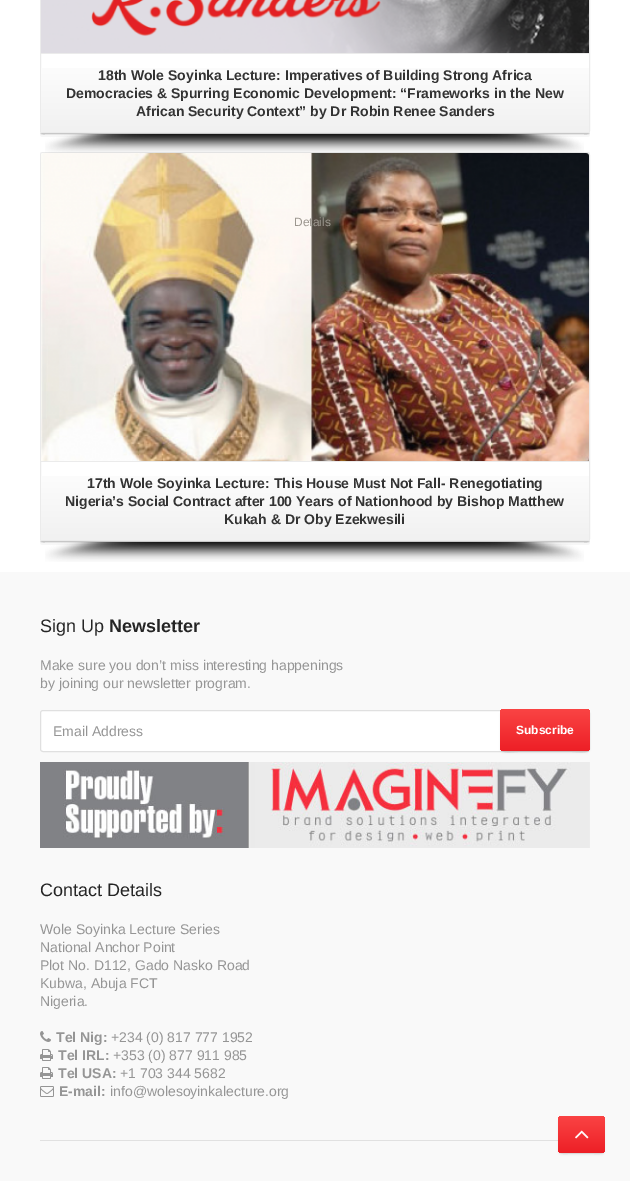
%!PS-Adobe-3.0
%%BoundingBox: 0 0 630 1181
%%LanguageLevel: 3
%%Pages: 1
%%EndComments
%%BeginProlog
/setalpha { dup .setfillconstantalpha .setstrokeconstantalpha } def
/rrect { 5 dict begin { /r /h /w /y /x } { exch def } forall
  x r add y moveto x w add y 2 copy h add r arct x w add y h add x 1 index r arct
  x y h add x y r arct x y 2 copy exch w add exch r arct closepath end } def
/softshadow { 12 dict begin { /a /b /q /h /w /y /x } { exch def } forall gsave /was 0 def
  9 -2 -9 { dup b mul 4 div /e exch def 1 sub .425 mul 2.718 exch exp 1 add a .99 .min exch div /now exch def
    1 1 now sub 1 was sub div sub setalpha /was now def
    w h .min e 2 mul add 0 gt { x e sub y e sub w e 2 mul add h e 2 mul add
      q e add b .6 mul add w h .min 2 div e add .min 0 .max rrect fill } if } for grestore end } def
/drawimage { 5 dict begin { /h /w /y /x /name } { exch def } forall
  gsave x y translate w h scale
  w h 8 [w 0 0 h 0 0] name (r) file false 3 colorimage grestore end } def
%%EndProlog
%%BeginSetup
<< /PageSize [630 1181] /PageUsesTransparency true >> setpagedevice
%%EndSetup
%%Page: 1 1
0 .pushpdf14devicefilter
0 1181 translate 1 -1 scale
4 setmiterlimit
1 setgray
0 0 630 1181 rectfill
0.929 setgray
newpath 40 131 moveto 40 132 lineto 40 134 41 135 43 135 curveto 587 135 lineto 589 135 590 134 590 132 curveto 590 131 lineto 590 133 589 134 587 134 curveto 43 134 lineto 41 134 40 133 40 131 curveto closepath fill
0.03 setalpha
0 setgray
newpath 40 131 moveto 40 134 lineto 40 136 41 137 43 137 curveto 587 137 lineto 589 137 590 136 590 134 curveto 590 131 lineto 590 133 589 134 587 134 curveto 43 134 lineto 41 134 40 133 40 131 curveto closepath fill
1 setalpha
1 setgray
40 -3 550 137 3 rrect fill
0.22 setalpha
0 setgray
newpath 589 133 moveto 587 133.5 lineto 43 133.5 lineto 41 133 lineto stroke
1 setalpha
0.922 setgray
newpath 41 133 moveto 40.5 131 lineto 40.5 -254 lineto 41 -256 lineto 43 -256.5 lineto 587 -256.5 lineto 589 -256 lineto 589.5 -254 lineto 589.5 131 lineto 589 133 lineto stroke
41 53 548 1 rectfill
(images/1.raw) 41 0 548 53 drawimage
gsave newpath 41 68 moveto 589 68 lineto 589 132 lineto 41 132 lineto closepath clip newpath
<< /ShadingType 2 /ColorSpace /DeviceRGB /Coords [315 54 315 132] /Extend [true true] /Function << /FunctionType 2 /Domain [0 1] /C0 [1 1 1] /C1 [0.945 0.945 0.945] /N 1 >> >> shfill grestore
41 132 548 1 rectfill
0.929 setgray
newpath 40 539 moveto 40 540 lineto 40 542 41 543 43 543 curveto 587 543 lineto 589 543 590 542 590 540 curveto 590 539 lineto 590 541 589 542 587 542 curveto 43 542 lineto 41 542 40 541 40 539 curveto closepath fill
0.03 setalpha
0 setgray
newpath 40 539 moveto 40 542 lineto 40 544 41 545 43 545 curveto 587 545 lineto 589 545 590 544 590 542 curveto 590 539 lineto 590 541 589 542 587 542 curveto 43 542 lineto 41 542 40 541 40 539 curveto closepath fill
1 setalpha
1 setgray
40 152 550 390 3 rrect fill
0.22 setalpha
0 setgray
newpath 589 541 moveto 587 541.5 lineto 43 541.5 lineto 41 541 lineto stroke
1 setalpha
0.922 setgray
newpath 41 541 moveto 40.5 539 lineto 40.5 155 lineto 41 153 lineto 43 152.5 lineto 587 152.5 lineto 589 153 lineto 589.5 155 lineto 589.5 539 lineto 589 541 lineto stroke
(images/2.raw) 45 134 539 19 drawimage
41 461 548 1 rectfill
(images/3.raw) 41 153 548 308 drawimage
gsave newpath 41 476 moveto 589 476 lineto 589 540 lineto 41 540 lineto closepath clip newpath
<< /ShadingType 2 /ColorSpace /DeviceRGB /Coords [315 462 315 540] /Extend [true true] /Function << /FunctionType 2 /Domain [0 1] /C0 [1 1 1] /C1 [0.945 0.945 0.945] /N 1 >> >> shfill grestore
41 540 548 1 rectfill
(images/4.raw) 45 542 539 20 drawimage
0.976 setgray
0 572 630 609 rectfill
1 setgray
40.5 710.5 549 41 2.5 rrect gsave fill grestore
0.878 setgray
stroke
0.08 setalpha
0 setgray
newpath 500 747 moveto 500 755 513 752 518 752 curveto 572 752 lineto 577 752 590 755 590 747 curveto 590 749 588 751 586 751 curveto 504 751 lineto 502 751 500 749 500 747 curveto closepath fill
1 setalpha
500 711 90 42 4 1 0.05 softshadow
gsave 500 709 90 42 4 rrect clip newpath
<< /ShadingType 2 /ColorSpace /DeviceRGB /Coords [545 709 545 751] /Extend [true true] /Function << /FunctionType 2 /Domain [0 1] /C0 [0.98 0.267 0.267] /C1 [0.929 0.122 0.149] /N 1 >> >> shfill grestore
(images/5.raw) 40 762 550 86 drawimage
(images/6.raw) 40 1031 11 11 drawimage
(images/7.raw) 40 1049 13 12 drawimage
(images/7.raw) 40 1067 13 12 drawimage
(images/8.raw) 40 1086 14 11 drawimage
0.882 setgray
40 1140 550 1 rectfill
0.902 setgray
newpath 558 1149 moveto 558 1155 564 1154 568 1154 curveto 594 1154 lineto 599 1154 605 1155 605 1149 curveto 605 1151 603 1153 601 1153 curveto 562 1153 lineto 560 1153 558 1151 558 1149 curveto closepath fill
gsave
newpath 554 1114 moveto 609 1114 lineto 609 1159 lineto 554 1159 lineto closepath 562 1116 moveto 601 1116 lineto 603 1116 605 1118 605 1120 curveto 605 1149 lineto 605 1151 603 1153 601 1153 curveto 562 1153 lineto 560 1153 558 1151 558 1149 curveto 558 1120 lineto 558 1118 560 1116 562 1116 curveto closepath eoclip newpath
0 setgray
558 1118 47 37 4 1 0.05 softshadow
grestore
0.98 setalpha
0.929 0.122 0.149 setrgbcolor
558 1116 47 37 4 rrect fill
gsave 558 1116 47 37 4 rrect clip newpath
<< /ShadingType 2 /ColorSpace /DeviceRGB /Coords [582 1116 582 1153] /Extend [true true] /Function << /FunctionType 2 /Domain [0 1] /C0 [0.98 0.267 0.267] /C1 [0.929 0.122 0.149] /N 1 >> >> shfill grestore
1 setalpha
(images/9.raw) 575 1130 14 9 drawimage
/LiberationSans-Bold [14 0 0 -14 0 0] selectfont
0.2 setgray
98 80 moveto (18th Wole Soyinka Lecture: Imperatives of Building Strong Africa) show
66 98 moveto (Democracies & Spurring Economic Development: “Frameworks in the New) show
136 116 moveto (African Security Context” by Dr Robin Renee Sanders) show
/LiberationSans-Regular [12 0 0 -12 0 0] selectfont
0.612 0.592 0.561 setrgbcolor
294 226 moveto (Details) show
/LiberationSans-Bold [14 0 0 -14 0 0] selectfont
0.2 setgray
87 488 moveto (17th Wole Soyinka Lecture: This House Must Not Fall- Renegotiating) show
65 506 moveto (Nigeria’s Social Contract after 100 Years of Nationhood by Bishop Matthew) show
224 524 moveto (Kukah & Dr Oby Ezekwesili) show
/LiberationSans-Regular [18 0 0 -18 0 0] selectfont
0.145 setgray
40 632 moveto (Sign Up) show
/LiberationSans-Bold [18 0 0 -18 0 0] selectfont
109 632 moveto (Newsletter) show
/LiberationSans-Regular [14 0 0 -14 0 0] selectfont
0.584 setgray
40 670 moveto (Make sure you don’t miss interesting happenings) show
40 688 moveto (by joining our newsletter program.) show
53 736 moveto (Email Address) show
/LiberationSans-Bold [12 0 0 -12 0 0] selectfont
1 setgray
516 734 moveto (Subscribe) show
/LiberationSans-Regular [18 0 0 -18 0 0] selectfont
0.145 setgray
40 896 moveto (Contact Details) show
/LiberationSans-Regular [14 0 0 -14 0 0] selectfont
0.584 setgray
40 934 moveto (Wole Soyinka Lecture Series) show
40 952 moveto (National Anchor Point) show
40 970 moveto (Plot No. D112, Gado Nasko Road) show
40 988 moveto (Kubwa, Abuja FCT) show
40 1006 moveto (Nigeria.) show
/LiberationSans-Bold [14 0 0 -14 0 0] selectfont
56 1042 moveto (Tel Nig:) show
/LiberationSans-Regular [14 0 0 -14 0 0] selectfont
111 1042 moveto (+234 \(0\) 817 777 1952) show
/LiberationSans-Bold [14 0 0 -14 0 0] selectfont
58 1060 moveto (Tel IRL:) show
/LiberationSans-Regular [14 0 0 -14 0 0] selectfont
113 1060 moveto (+353 \(0\) 877 911 985) show
/LiberationSans-Bold [14 0 0 -14 0 0] selectfont
58 1078 moveto (Tel USA:) show
/LiberationSans-Regular [14 0 0 -14 0 0] selectfont
120 1078 moveto (+1 703 344 5682) show
/LiberationSans-Bold [14 0 0 -14 0 0] selectfont
59 1096 moveto (E-mail:) show
/LiberationSans-Regular [14 0 0 -14 0 0] selectfont
110 1096 moveto (info@wolesoyinkalecture.org) show
.poppdf14devicefilter showpage
%%EOF
